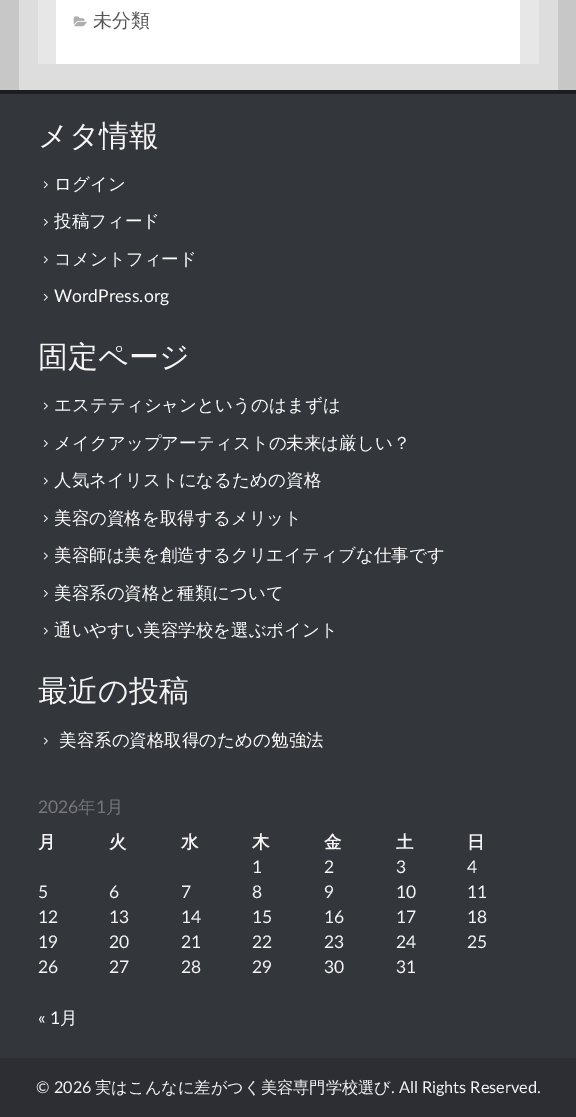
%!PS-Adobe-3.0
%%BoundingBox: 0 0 576 1117
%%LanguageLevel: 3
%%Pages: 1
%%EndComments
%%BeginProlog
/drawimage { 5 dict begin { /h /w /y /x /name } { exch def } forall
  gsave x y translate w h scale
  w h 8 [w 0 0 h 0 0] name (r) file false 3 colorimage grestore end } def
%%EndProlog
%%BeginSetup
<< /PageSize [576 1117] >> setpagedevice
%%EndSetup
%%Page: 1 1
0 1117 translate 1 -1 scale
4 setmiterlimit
0.867 setgray
0 0 576 1117 rectfill
0.78 setgray
558 0 18 90 rectfill
0 0 19 90 rectfill
0.906 setgray
38 0 501 64 rectfill
1 setgray
56 0 464 64 rectfill
(images/1.raw) 73 16 14 11 drawimage
0.2 0.212 0.231 setrgbcolor
0 94 576 964 rectfill
0.106 0.114 0.125 setrgbcolor
0 90 576 4 rectfill
(images/2.raw) 43 181 5 8 drawimage
(images/3.raw) 43 218 5 8 drawimage
(images/2.raw) 43 256 5 8 drawimage
(images/3.raw) 43 293 5 8 drawimage
(images/4.raw) 43 402 5 8 drawimage
(images/5.raw) 43 440 5 7 drawimage
(images/4.raw) 43 477 5 8 drawimage
(images/5.raw) 43 515 5 7 drawimage
(images/4.raw) 43 552 5 8 drawimage
(images/5.raw) 43 590 5 7 drawimage
(images/4.raw) 43 627 5 8 drawimage
(images/4.raw) 43 737 5 8 drawimage
0.173 0.18 0.2 setrgbcolor
0 1058 576 59 rectfill
/WenQuanYiZenHei-Medium [19 0 0 -19 0 0] selectfont
0.333 setgray
93 27 moveto (未分類) show
/WenQuanYiZenHei-Medium [30 0 0 -30 0 0] selectfont
0.961 setgray
38 146 moveto (メタ情報) show
/WenQuanYiZenHei-Medium [17.5 0 0 -17.5 0 0] selectfont
1 setgray
54 190 moveto (ログイン) show
54 227 moveto (投稿フィード) show
54 265 moveto (コメントフィード) show
/Lato-Regular [17.5 0 0 -17.5 0 0] selectfont
54 302 moveto (WordPress.org) show
/WenQuanYiZenHei-Medium [30 0 0 -30 0 0] selectfont
0.961 setgray
38 367 moveto (固定ページ) show
/WenQuanYiZenHei-Medium [17.5 0 0 -17.5 0 0] selectfont
1 setgray
54 411 moveto (エステティシャンというのはまずは) show
54 449 moveto (メイクアップアーティストの未来は厳しい？) show
54 486 moveto (人気ネイリストになるための資格) show
54 524 moveto (美容の資格を取得するメリット) show
54 561 moveto (美容師は美を創造するクリエイティブな仕事です) show
54 599 moveto (美容系の資格と種類について) show
54 636 moveto (通いやすい美容学校を選ぶポイント) show
/WenQuanYiZenHei-Medium [30 0 0 -30 0 0] selectfont
0.961 setgray
38 701 moveto (最近の投稿) show
/WenQuanYiZenHei-Medium [17.5 0 0 -17.5 0 0] selectfont
1 setgray
59 746 moveto (美容系の資格取得のための勉強法) show
/Lato-Regular [17.5 0 0 -17.5 0 0] selectfont
0.467 setgray
38 813 moveto (2026) show
/WenQuanYiZenHei-Medium [17.5 0 0 -17.5 0 0] selectfont
78 813 moveto (年) show
/Lato-Regular [17.5 0 0 -17.5 0 0] selectfont
96 813 moveto (1) show
/WenQuanYiZenHei-Medium [17.5 0 0 -17.5 0 0] selectfont
106 813 moveto (月) show
/WenQuanYiZenHei-Bold [17.5 0 0 -17.5 0 0] selectfont
0.961 setgray
38 848 moveto (月) show
109 848 moveto (火) show
181 848 moveto (水) show
252 848 moveto (木) show
324 848 moveto (金) show
396 848 moveto (土) show
467 848 moveto (日) show
/Lato-Regular [17.5 0 0 -17.5 0 0] selectfont
252 873 moveto (1) show
324 873 moveto (2) show
396 873 moveto (3) show
467 873 moveto (4) show
38 898 moveto (5) show
109 898 moveto (6) show
181 898 moveto (7) show
252 898 moveto (8) show
324 898 moveto (9) show
396 898 moveto (10) show
467 898 moveto (11) show
38 923 moveto (12) show
109 923 moveto (13) show
181 923 moveto (14) show
252 923 moveto (15) show
324 923 moveto (16) show
396 923 moveto (17) show
467 923 moveto (18) show
38 948 moveto (19) show
109 948 moveto (20) show
181 948 moveto (21) show
252 948 moveto (22) show
324 948 moveto (23) show
396 948 moveto (24) show
467 948 moveto (25) show
38 973 moveto (26) show
109 973 moveto (27) show
181 973 moveto (28) show
252 973 moveto (29) show
324 973 moveto (30) show
396 973 moveto (31) show
1 setgray
38 1024 moveto (« 1) show
/WenQuanYiZenHei-Medium [17.5 0 0 -17.5 0 0] selectfont
60 1024 moveto (月) show
/Lato-Regular [16.25 0 0 -16.25 0 0] selectfont
0.961 setgray
36 1093 moveto (© 2026) show
/WenQuanYiZenHei-Medium [16.25 0 0 -16.25 0 0] selectfont
95 1093 moveto (実はこんなに差がつく美容専門学校選び) show
/Lato-Regular [16.25 0 0 -16.25 0 0] selectfont
391 1093 moveto (. All Rights Reserved.) show
showpage
%%EOF
